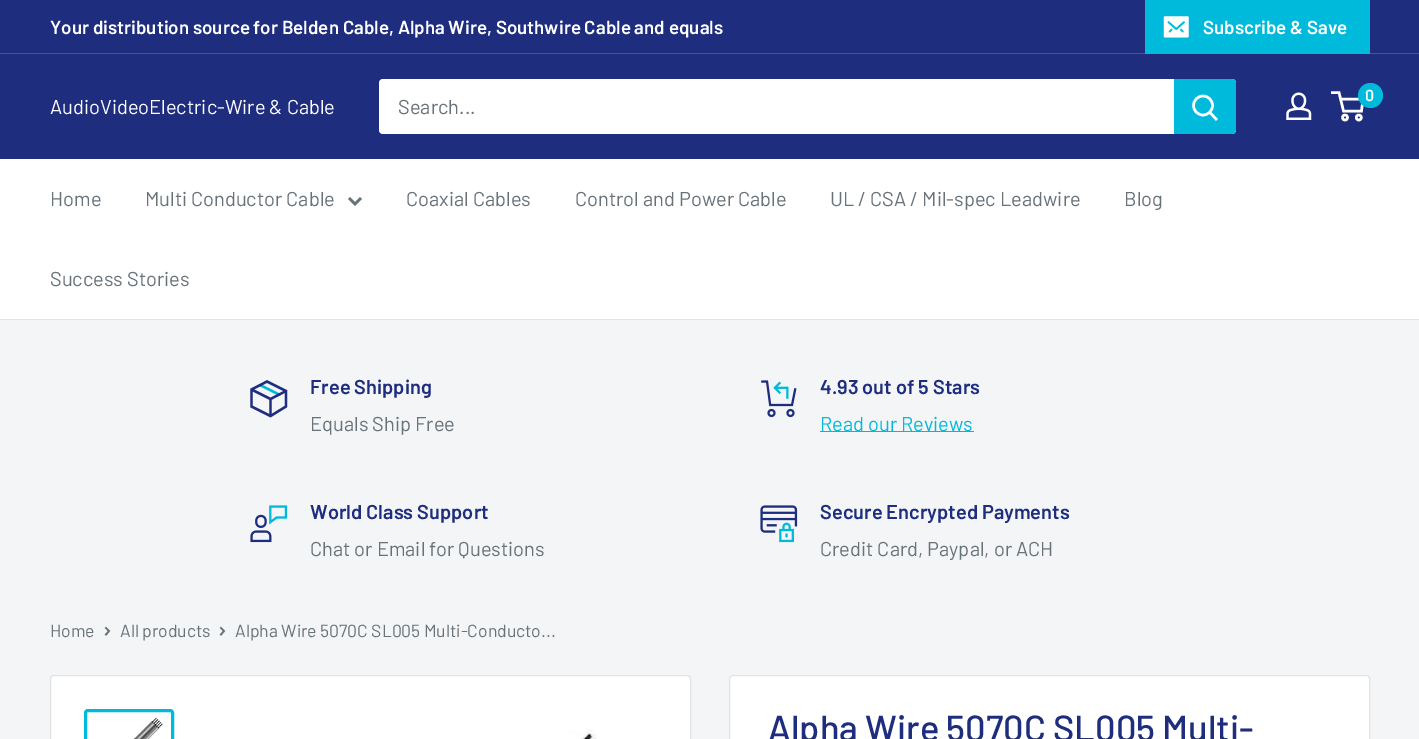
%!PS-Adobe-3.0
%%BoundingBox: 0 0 1419 739
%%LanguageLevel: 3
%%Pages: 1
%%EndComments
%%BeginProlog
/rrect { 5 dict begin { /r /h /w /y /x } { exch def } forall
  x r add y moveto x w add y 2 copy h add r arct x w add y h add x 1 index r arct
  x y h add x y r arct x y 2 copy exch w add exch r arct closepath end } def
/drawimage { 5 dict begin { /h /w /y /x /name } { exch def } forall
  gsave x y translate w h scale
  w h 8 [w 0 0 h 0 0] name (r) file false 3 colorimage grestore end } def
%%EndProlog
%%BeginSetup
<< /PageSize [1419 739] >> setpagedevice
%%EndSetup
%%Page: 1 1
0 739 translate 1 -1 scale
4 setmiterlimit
0.953 0.961 0.965 setrgbcolor
0 0 1419 739 rectfill
0.118 0.176 0.49 setrgbcolor
0 0 1419 53 rectfill
0.275 0.329 0.624 setrgbcolor
0 53 1419 1 rectfill
0 0.729 0.859 setrgbcolor
1145 0 225 54 rectfill
(images/1.raw) 1163 16 26 22 drawimage
0.118 0.176 0.49 setrgbcolor
0 54 1419 105 rectfill
(images/2.raw) 1286 92 26 28 drawimage
1 setgray
2.5 setlinewidth
newpath 1345 117.5 2.5 0 360 arc closepath stroke
newpath 1358.8 117.5 2.5 0 360 arc closepath stroke
newpath 1340.5 99 moveto 1363 99 lineto 1361.5 111 lineto 1343.5 111 lineto 1339 92.5 lineto 1331 92.5 lineto stroke
0 0.729 0.859 setrgbcolor
newpath 1370.5 95.5 12.5 0 360 arc closepath fill
1 setgray
379 79 857 55 4 rrect fill
0 0.729 0.859 setrgbcolor
newpath 1174 79 moveto 1232 79 lineto 1234 79 1236 81 1236 83 curveto 1236 130 lineto 1236 132 1234 134 1232 134 curveto 1174 134 lineto closepath fill
1 setgray
2 setlinecap
newpath 1216 119 moveto 1210 112.5 lineto stroke
0 setlinecap
newpath 1203 105.5 9.5 0 360 arc closepath stroke
0 159 1419 160 rectfill
0.882 0.89 0.894 setrgbcolor
0 319 1419 1 rectfill
0.404 0.447 0.475 setrgbcolor
2 setlinecap
newpath 360 199 moveto 355 204 lineto 350 199 lineto stroke
0 0.729 0.859 setrgbcolor
2.3 setlinewidth
0 setlinecap
newpath 260 385 moveto 279 394.5 lineto stroke
0.118 0.176 0.49 setrgbcolor
newpath 286 391 moveto 270.5 399 lineto 251.5 389.5 lineto 270.5 399 moveto 270.5 416 lineto stroke
2 setlinecap
newpath 286 391 moveto 286 406.5 lineto 270.5 416 lineto 251.5 406.5 lineto 251.5 389.5 lineto 267 381.5 lineto closepath stroke
(images/3.raw) 761 380 36 38 drawimage
0 0.729 0.859 setrgbcolor
820 431 154 1 rectfill
(images/4.raw) 250 505 38 38 drawimage
(images/5.raw) 760 505 38 38 drawimage
0.404 0.447 0.475 setrgbcolor
1.7 setlinewidth
newpath 106 628 moveto 109 631 lineto 106 634.5 lineto stroke
newpath 221 628 moveto 224 631 lineto 221 634.5 lineto stroke
1 setgray
50.5 675.5 640 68 3.5 rrect gsave fill grestore
0.882 0.89 0.894 setrgbcolor
1 setlinewidth
0 setlinecap
stroke
0 0.729 0.859 setrgbcolor
3 setlinewidth
85.5 710.5 87 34 2.5 rrect stroke
(images/6.raw) 133 716 30 23 drawimage
(images/7.raw) 569 729 28 10 drawimage
1 setgray
729.5 675.5 640 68 3.5 rrect gsave fill grestore
0.882 0.89 0.894 setrgbcolor
1 setlinewidth
stroke
/Barlow-SemiBold [18.75 0 0 -18.75 0 0] selectfont
1 setgray
50 34 moveto (Your distribution source for Belden Cable, Alpha Wire, Southwire Cable and equals) show
1203 34 moveto (Subscribe & Save) show
/Barlow-SemiBold [16 0 0 -16 0 0] selectfont
1365 101 moveto (0) show
/Barlow-Regular [20 0 0 -20 0 0] selectfont
50 114 moveto (AudioVideoElectric-Wire & Cable) show
0.404 0.447 0.475 setrgbcolor
398 114 moveto (Search...) show
50 206 moveto (Home) show
145 206 moveto (Multi Conductor Cable) show
406 206 moveto (Coaxial Cables) show
575 206 moveto (Control and Power Cable) show
830 206 moveto (UL / CSA / Mil-spec Leadwire) show
1124 206 moveto (Blog) show
50 286 moveto (Success Stories) show
/Barlow-SemiBold [20 0 0 -20 0 0] selectfont
0.118 0.176 0.49 setrgbcolor
310 394 moveto (Free Shipping) show
/Barlow-Regular [20 0 0 -20 0 0] selectfont
0.404 0.447 0.475 setrgbcolor
310 431 moveto (Equals Ship Free) show
/Barlow-SemiBold [20 0 0 -20 0 0] selectfont
0.118 0.176 0.49 setrgbcolor
820 394 moveto (4.93 out of 5 Stars) show
/Barlow-Regular [20 0 0 -20 0 0] selectfont
0 0.729 0.859 setrgbcolor
820 431 moveto (Read our Reviews) show
/Barlow-SemiBold [20 0 0 -20 0 0] selectfont
0.118 0.176 0.49 setrgbcolor
310 519 moveto (World Class Support) show
/Barlow-Regular [20 0 0 -20 0 0] selectfont
0.404 0.447 0.475 setrgbcolor
310 556 moveto (Chat or Email for Questions) show
/Barlow-SemiBold [20 0 0 -20 0 0] selectfont
0.118 0.176 0.49 setrgbcolor
820 519 moveto (Secure Encrypted Payments) show
/Barlow-Regular [20 0 0 -20 0 0] selectfont
0.404 0.447 0.475 setrgbcolor
820 556 moveto (Credit Card, Paypal, or ACH) show
/Barlow-Regular [17.5 0 0 -17.5 0 0] selectfont
50 637 moveto (Home) show
120 637 moveto (All products) show
235 637 moveto (Alpha Wire 5070C SL005 Multi-Conducto...) show
/Barlow-Medium [36.25 0 0 -36.25 0 0] selectfont
0.118 0.176 0.49 setrgbcolor
768 741 moveto (Alpha Wire 5070C SL005 Multi-) show
showpage
%%EOF
